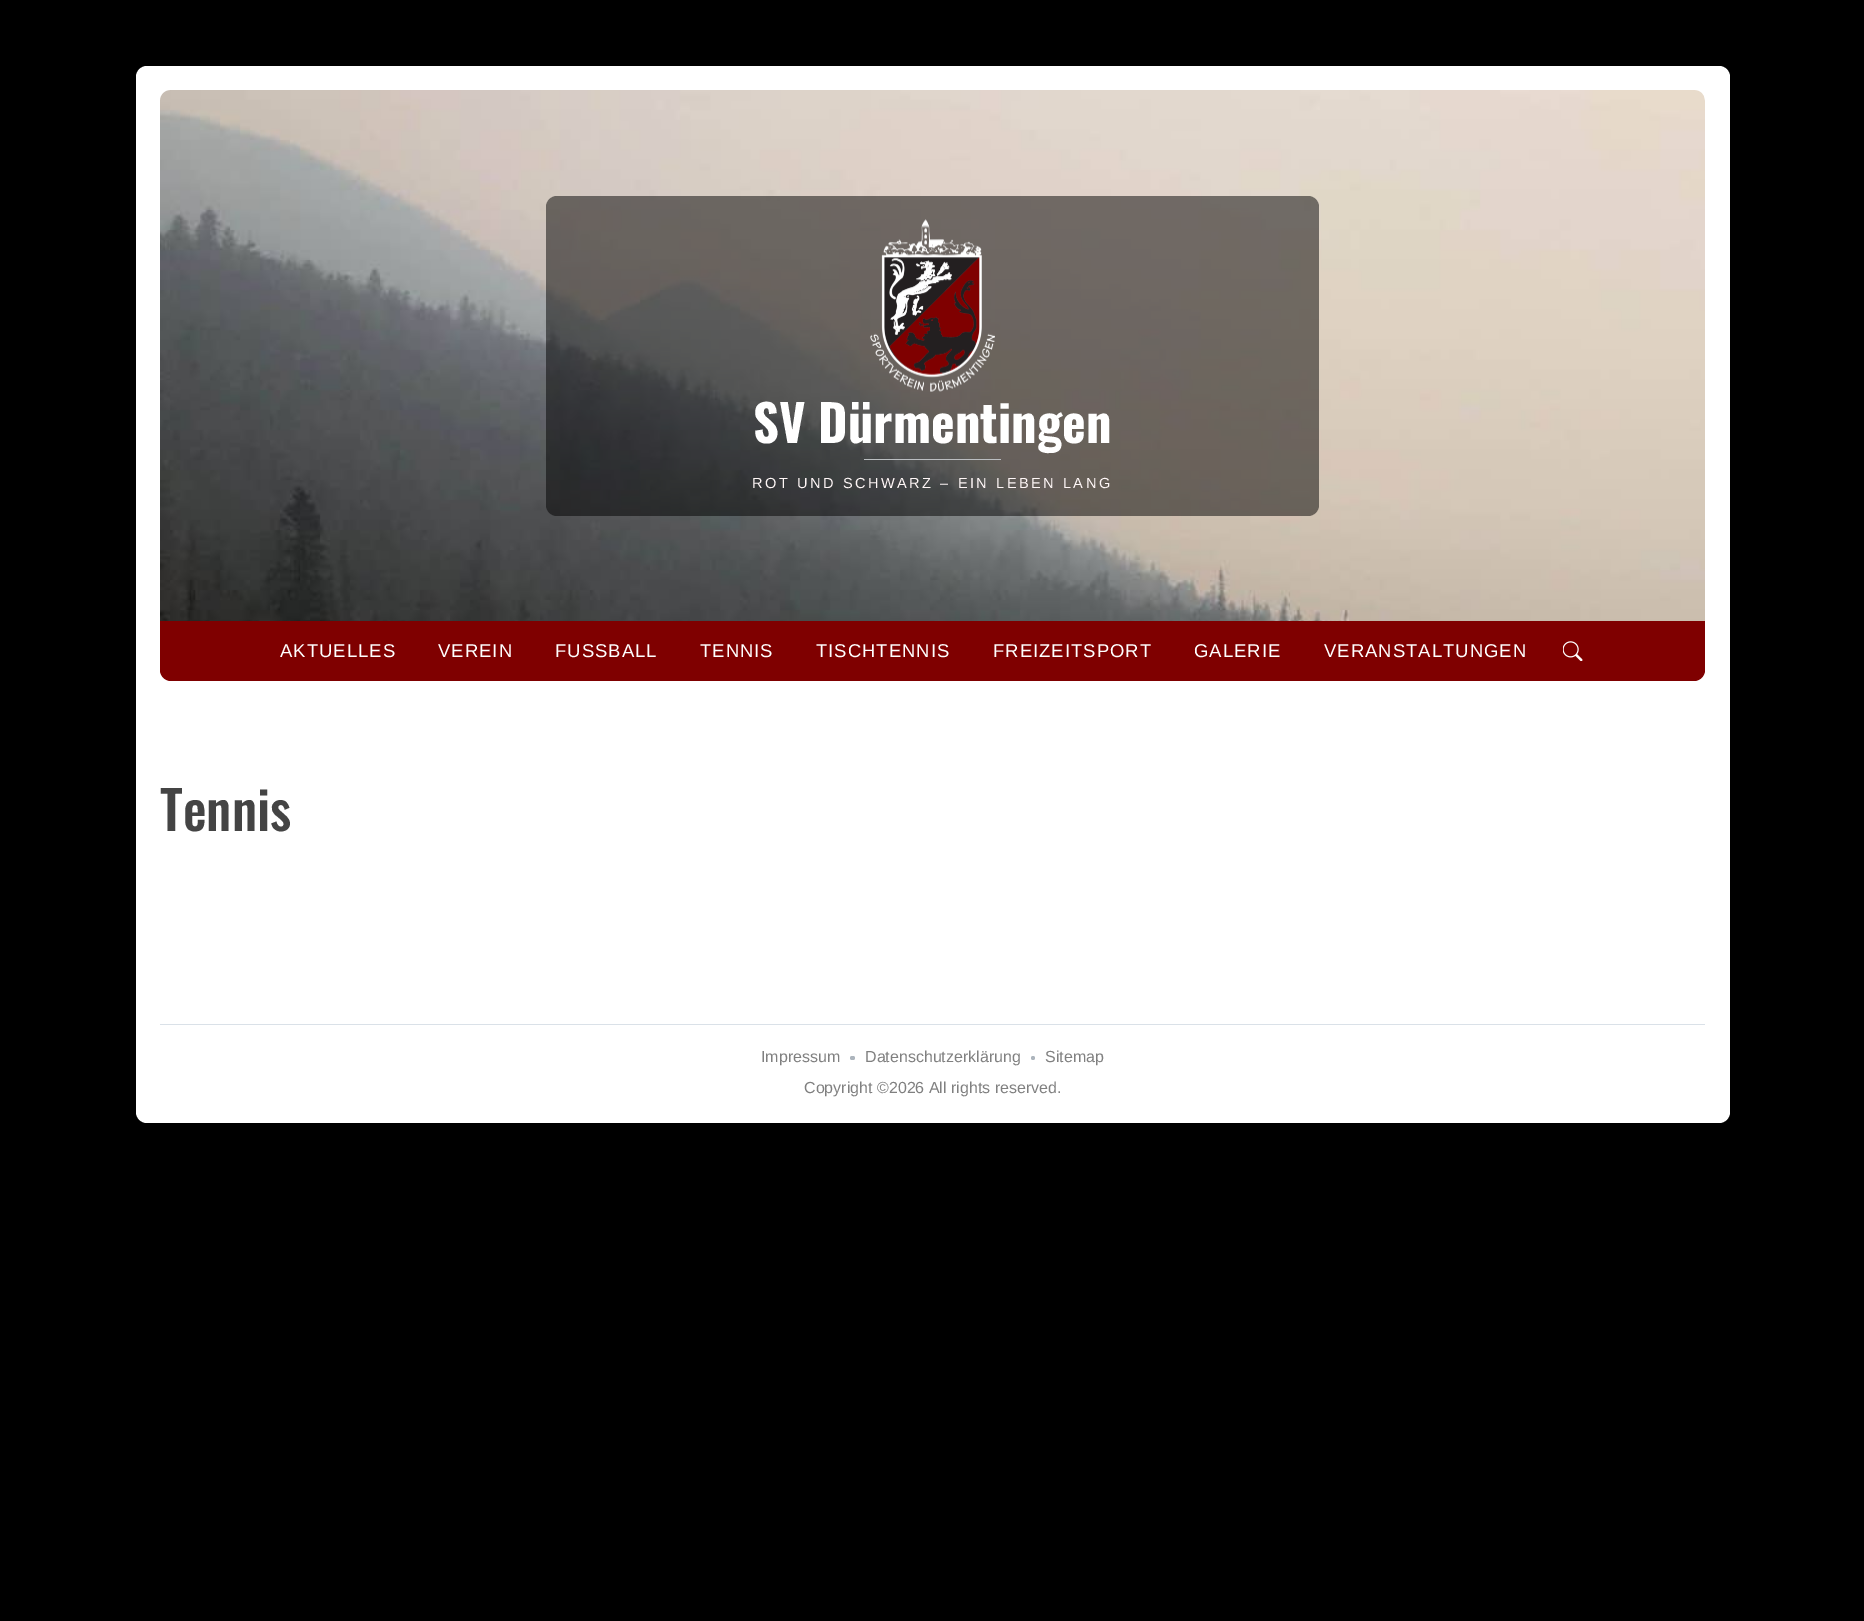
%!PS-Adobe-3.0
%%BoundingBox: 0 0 1864 1621
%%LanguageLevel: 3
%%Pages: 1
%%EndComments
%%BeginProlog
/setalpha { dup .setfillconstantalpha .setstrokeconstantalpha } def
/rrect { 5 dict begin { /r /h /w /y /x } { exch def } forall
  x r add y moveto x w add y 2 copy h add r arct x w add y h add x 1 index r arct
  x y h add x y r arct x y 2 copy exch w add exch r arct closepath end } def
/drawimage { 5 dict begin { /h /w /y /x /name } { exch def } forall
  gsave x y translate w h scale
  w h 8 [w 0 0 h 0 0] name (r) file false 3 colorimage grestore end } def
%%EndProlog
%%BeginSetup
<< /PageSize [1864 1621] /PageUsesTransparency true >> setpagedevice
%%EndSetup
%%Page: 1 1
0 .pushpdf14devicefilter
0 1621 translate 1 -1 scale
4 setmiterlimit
0 setgray
0 0 1864 1621 rectfill
1 setgray
136 66 1594 1057 11 rrect fill
(images/1.raw) 160 90 1545 531 drawimage
0.5 setalpha
0 setgray
546 196 773 320 11 rrect fill
1 setalpha
(images/2.raw) 870 219 125 173 drawimage
0.729 0.741 0.753 setrgbcolor
864 459 137 1 rectfill
0.498 0 0 setrgbcolor
newpath 160 621 moveto 1705 621 lineto 1705 670 lineto 1705 676 1700 681 1694 681 curveto 171 681 lineto 165 681 160 676 160 670 curveto closepath fill
(images/3.raw) 1563 641 20 20 drawimage
0.855 0.882 0.91 setrgbcolor
160 1024 1545 1 rectfill
0.678 0.71 0.741 setrgbcolor
850 1056 5 4 2 rrect fill
newpath 1033 1058 2 0 360 arc closepath fill
/Oswald-Bold [50.5 0 0 -50.5 0 0] selectfont
1 setgray
753 443 moveto (SV Dürmentingen) show
/LiberationSans-Regular [14.6 0 0 -14.6 0 0] selectfont
1 0.969 0.969 setrgbcolor
752 488 moveto 2.5 0 (ROT UND SCHWARZ – EIN LEBEN LANG) ashow
/LiberationSans-Regular [18.5 0 0 -18.5 0 0] selectfont
1 setgray
280 657 moveto 1 0 (AKTUELLES) ashow
438 657 moveto 1 0 (VEREIN) ashow
555 657 moveto 1 0 (FUSSBALL) ashow
700 657 moveto 1 0 (TENNIS) ashow
816 657 moveto 1 0 (TISCHTENNIS) ashow
993 657 moveto 1 0 (FREIZEITSPORT) ashow
1194 657 moveto 1 0 (GALERIE) ashow
1324 657 moveto 1 0 (VERANSTALTUNGEN) ashow
/Oswald-Medium [53 0 0 -53 0 0] selectfont
0.267 setgray
160 831 moveto (Tennis) show
/LiberationSans-Regular [16 0 0 -16 0 0] selectfont
0.502 setgray
761 1062 moveto (Impressum) show
865 1062 moveto (Datenschutzerklärung) show
1045 1062 moveto (Sitemap) show
804 1093 moveto (Copyright ©2026 All rights reserved.) show
.poppdf14devicefilter showpage
%%EOF
